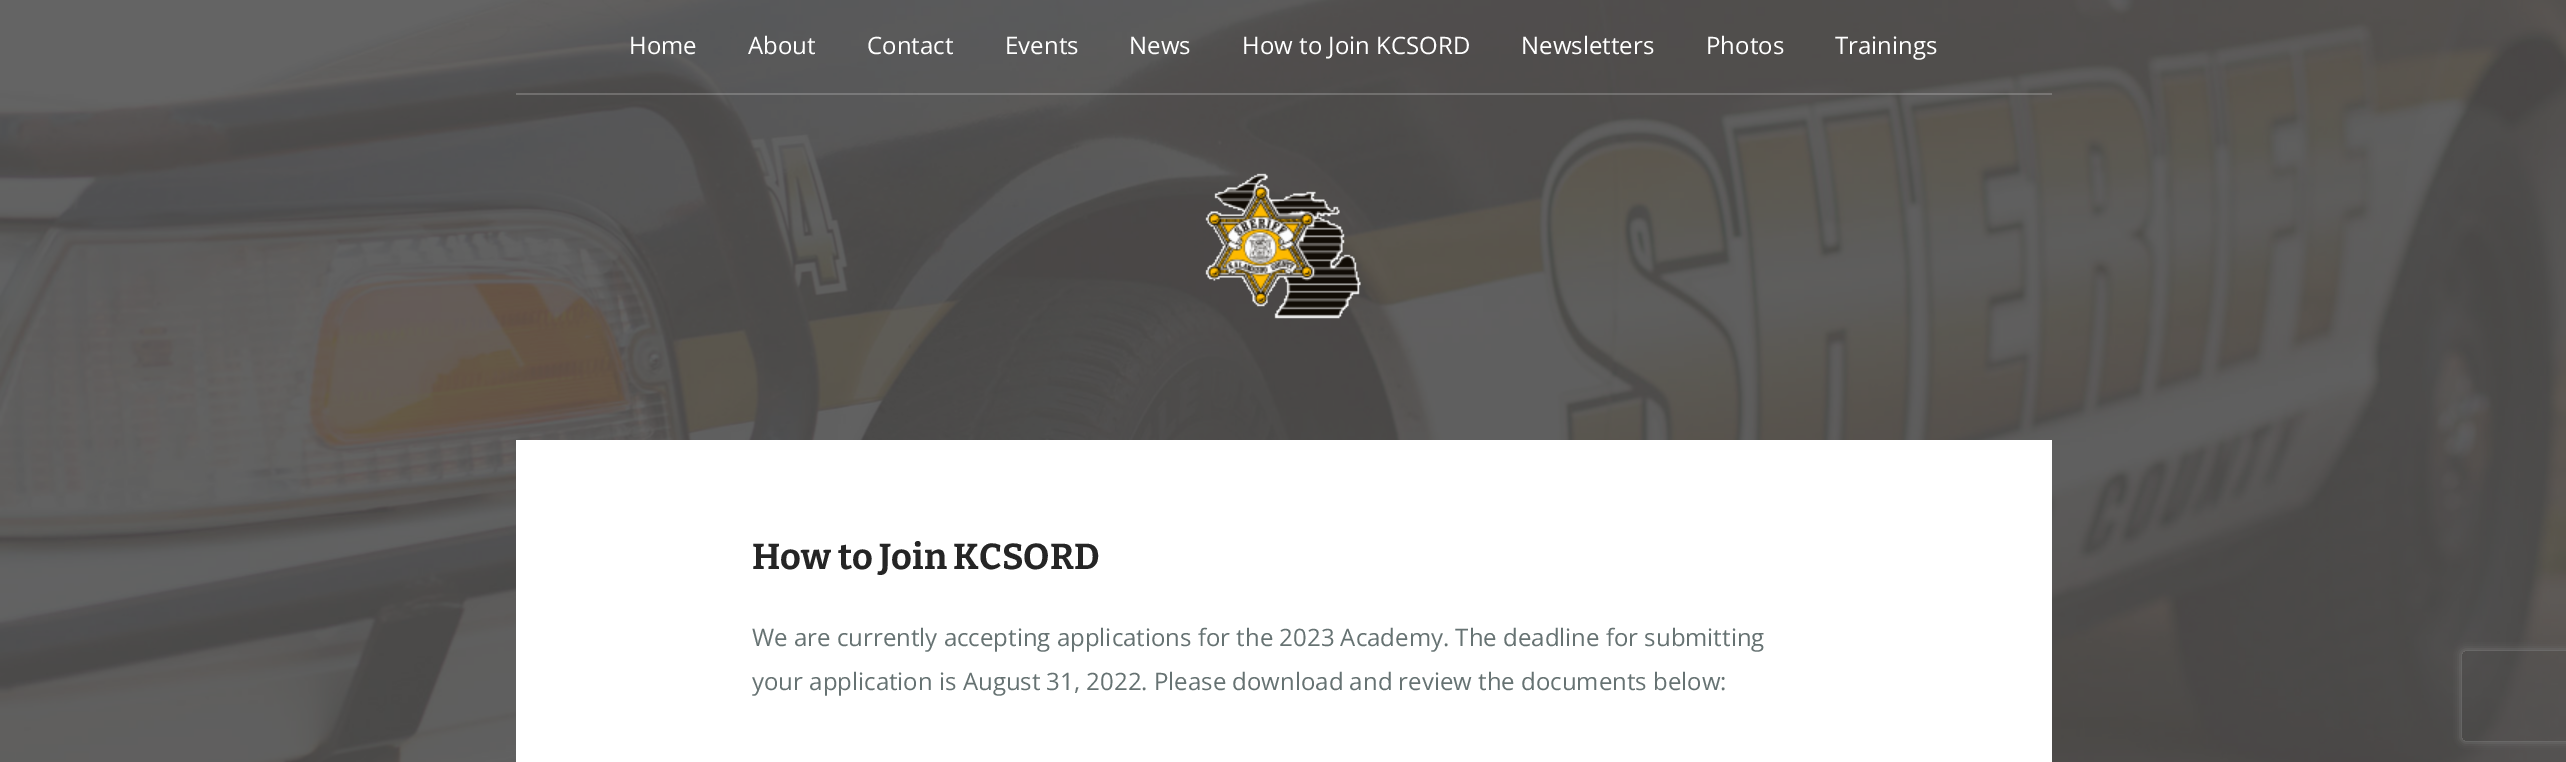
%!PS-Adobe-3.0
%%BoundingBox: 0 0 2566 762
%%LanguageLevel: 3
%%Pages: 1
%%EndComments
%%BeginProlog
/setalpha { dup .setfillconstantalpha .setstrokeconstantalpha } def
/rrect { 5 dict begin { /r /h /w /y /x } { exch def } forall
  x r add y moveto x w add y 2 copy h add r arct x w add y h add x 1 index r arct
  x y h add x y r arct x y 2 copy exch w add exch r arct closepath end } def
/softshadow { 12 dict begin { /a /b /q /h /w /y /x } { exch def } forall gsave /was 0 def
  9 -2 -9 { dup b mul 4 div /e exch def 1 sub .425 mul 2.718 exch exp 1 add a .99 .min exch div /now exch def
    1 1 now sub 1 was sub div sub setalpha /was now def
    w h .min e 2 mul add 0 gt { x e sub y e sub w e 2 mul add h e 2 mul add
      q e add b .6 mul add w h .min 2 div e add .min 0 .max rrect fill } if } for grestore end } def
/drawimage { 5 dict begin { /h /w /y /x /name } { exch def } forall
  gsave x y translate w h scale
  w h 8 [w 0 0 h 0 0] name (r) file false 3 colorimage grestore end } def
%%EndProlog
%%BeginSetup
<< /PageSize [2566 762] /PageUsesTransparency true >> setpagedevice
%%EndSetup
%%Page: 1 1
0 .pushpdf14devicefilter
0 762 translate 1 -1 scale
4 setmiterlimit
1 setgray
0 0 2566 762 rectfill
(images/1.raw) 0 0 2566 762 drawimage
0.2 setalpha
516 93 1536 2 rectfill
1 setalpha
(images/2.raw) 1205 173 156 146 drawimage
516 440 1536 322 rectfill
gsave
newpath 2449 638 moveto 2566 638 lineto 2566 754 lineto 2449 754 lineto closepath 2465 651 moveto 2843 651 lineto 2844.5 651 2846 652.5 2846 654 curveto 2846 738 lineto 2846 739.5 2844.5 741 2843 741 curveto 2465 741 lineto 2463.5 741 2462 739.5 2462 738 curveto 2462 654 lineto 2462 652.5 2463.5 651 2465 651 curveto closepath eoclip newpath
0.502 setgray
2462 651 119 90 3 4 1 softshadow
grestore
/OpenSans-Regular [24 0 0 -24 0 0] selectfont
629 54 moveto (Home) show
748 54 moveto (About) show
867 54 moveto (Contact) show
1005 54 moveto (Events) show
1129 54 moveto (News) show
1242 54 moveto (How to Join KCSORD) show
1521 54 moveto (Newsletters) show
1706 54 moveto (Photos) show
1835 54 moveto (Trainings) show
/Bitter-Thin [36 0 0 -36 0 0] selectfont
0.145 setgray
752 569 moveto (How to Join KCSORD) show
/OpenSans-Regular [24 0 0 -24 0 0] selectfont
0.4 0.447 0.447 setrgbcolor
752 646 moveto (We are currently accepting applications for the 2023 Academy. The deadline for submitting) show
752 690 moveto (your application is August 31, 2022. Please download and review the documents below:) show
.poppdf14devicefilter showpage
%%EOF
